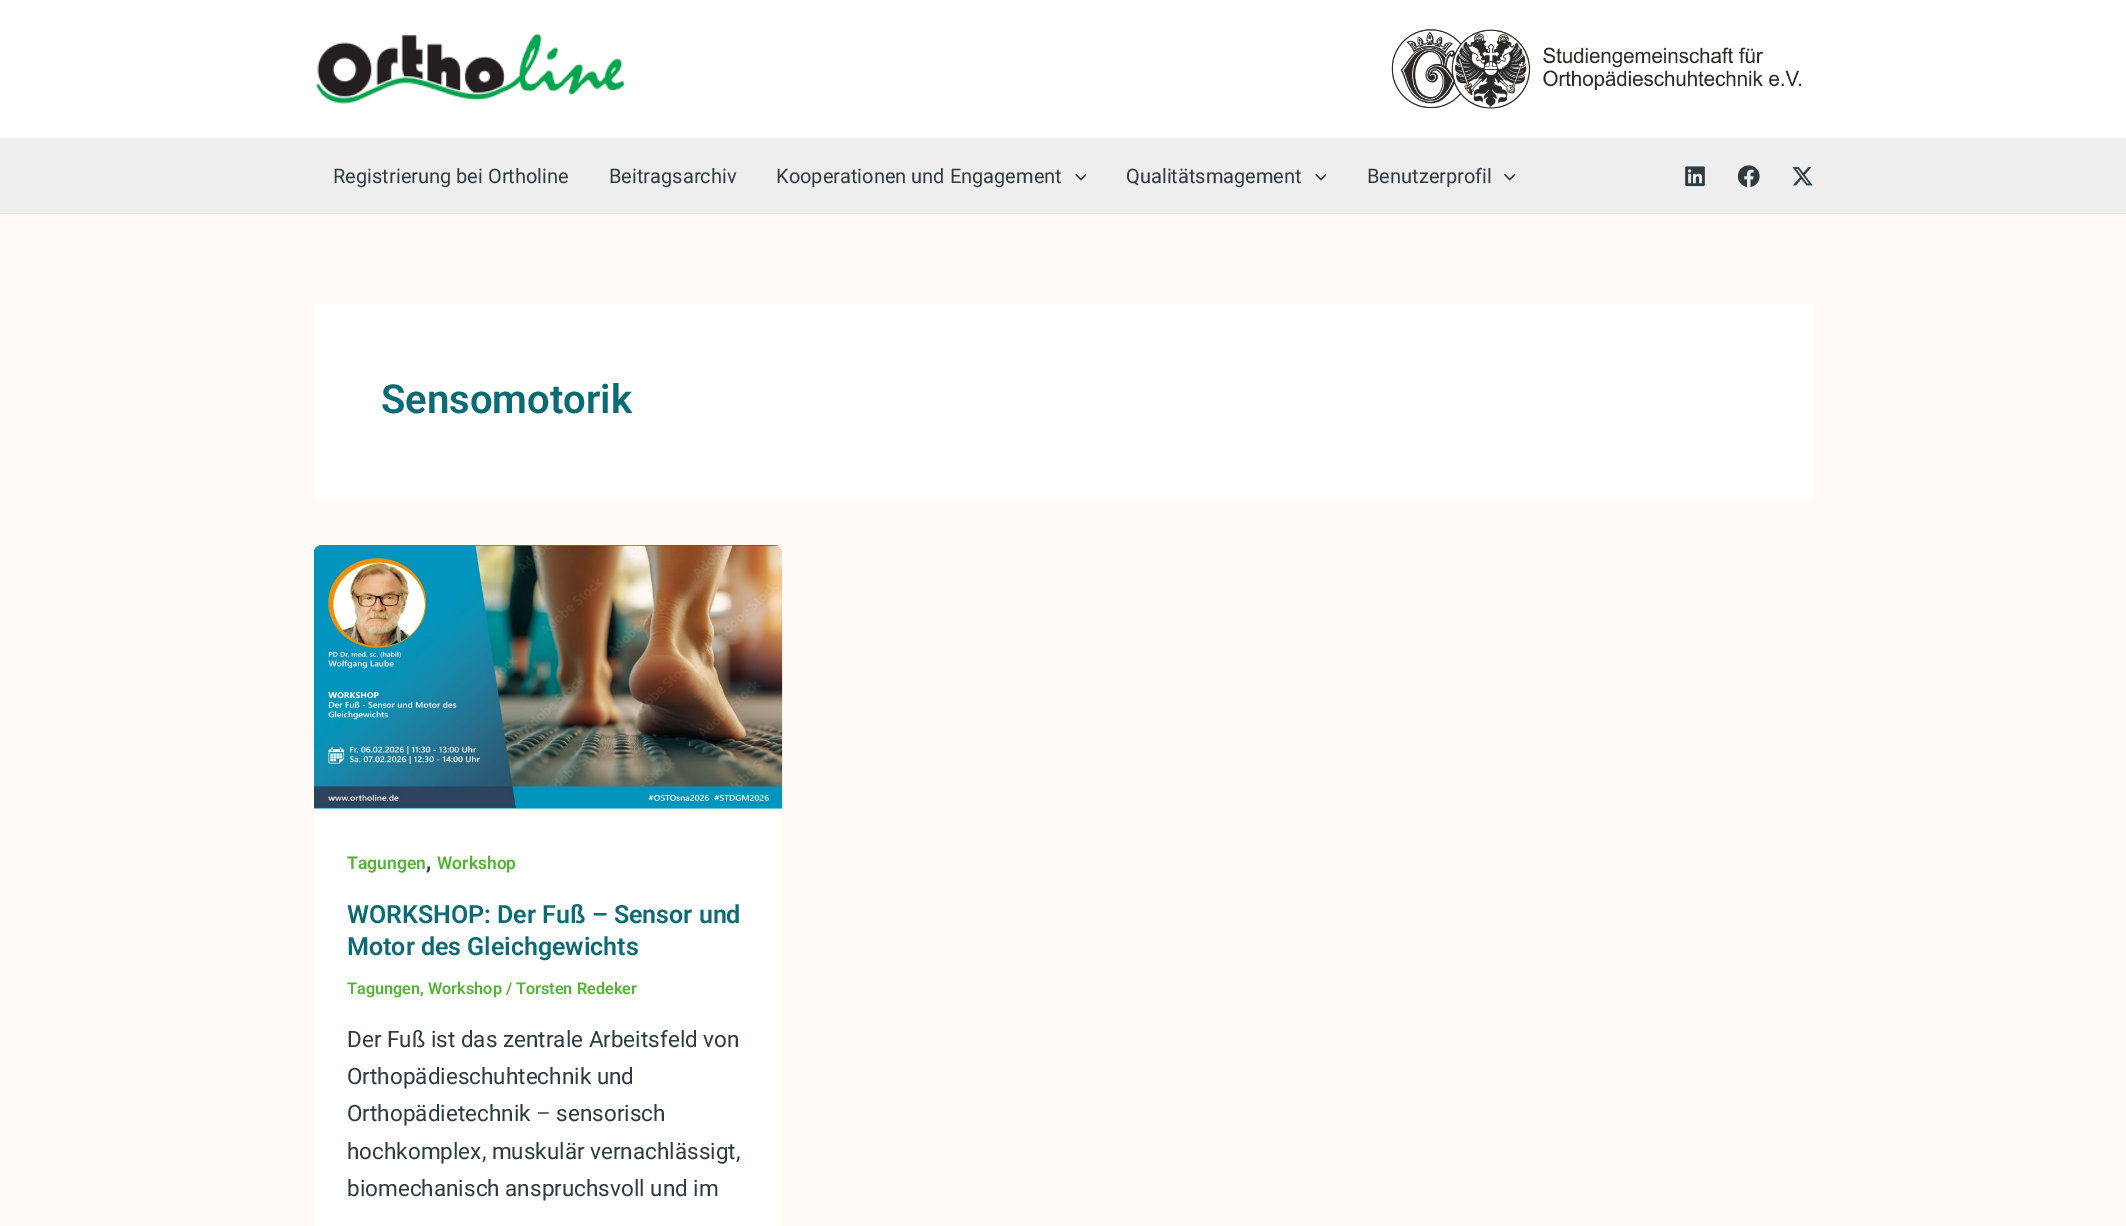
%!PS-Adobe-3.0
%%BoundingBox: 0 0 2126 1226
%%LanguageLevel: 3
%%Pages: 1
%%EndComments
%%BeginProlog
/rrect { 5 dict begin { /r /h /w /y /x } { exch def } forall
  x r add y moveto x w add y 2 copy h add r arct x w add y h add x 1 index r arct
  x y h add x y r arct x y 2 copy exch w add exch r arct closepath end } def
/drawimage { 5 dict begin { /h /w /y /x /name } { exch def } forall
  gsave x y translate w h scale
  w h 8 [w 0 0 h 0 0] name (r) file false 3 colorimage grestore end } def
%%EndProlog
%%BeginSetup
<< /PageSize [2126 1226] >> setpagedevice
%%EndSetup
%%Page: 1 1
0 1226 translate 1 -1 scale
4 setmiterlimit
1 0.98 0.961 setrgbcolor
0 0 2126 1226 rectfill
1 setgray
0 0 2126 138 rectfill
(images/1.raw) 316 33 310 71 drawimage
(images/2.raw) 1391 28 411 81 drawimage
0.933 setgray
0 138 2126 75 rectfill
0.918 setgray
0 213 2126 1 rectfill
(images/3.raw) 1075 173 11 8 drawimage
(images/3.raw) 1315 173 11 8 drawimage
(images/4.raw) 1504 173 12 8 drawimage
(images/5.raw) 1685 166 20 21 drawimage
(images/6.raw) 1738 165 22 22 drawimage
(images/7.raw) 1792 167 21 19 drawimage
1 setgray
314 304 1500 196 rectfill
314 545 469 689 8 rrect fill
(images/8.raw) 314 545 469 264 drawimage
/Roboto-Regular [20 0 0 -20 0 0] selectfont
0.184 0.231 0.251 setrgbcolor
333 183 moveto (Registrierung bei Ortholine) show
609 183 moveto (Beitragsarchiv) show
776 183 moveto (Kooperationen und Engagement) show
1126 183 moveto (Qualitätsmagement) show
1367 183 moveto (Benutzerprofil) show
/Roboto-SemiBold [40 0 0 -40 0 0] selectfont
0.043 0.416 0.455 setrgbcolor
381 413 moveto (Sensomotorik) show
/Roboto-SemiBold [17.5 0 0 -17.5 0 0] selectfont
0.329 0.706 0.208 setrgbcolor
347 869 moveto (Tagungen) show
/Roboto-SemiBold [22.5 0 0 -22.5 0 0] selectfont
0.184 0.231 0.251 setrgbcolor
426 869 moveto (,) show
/Roboto-SemiBold [17.5 0 0 -17.5 0 0] selectfont
0.329 0.706 0.208 setrgbcolor
437 869 moveto (Workshop) show
/Roboto-SemiBold [25 0 0 -25 0 0] selectfont
0.043 0.416 0.455 setrgbcolor
347 923 moveto (WORKSHOP: Der Fuß – Sensor und) show
347 955 moveto (Motor des Gleichgewichts) show
/Roboto-SemiBold [16.25 0 0 -16.25 0 0] selectfont
0.329 0.706 0.208 setrgbcolor
347 994 moveto (Tagungen, Workshop / Torsten Redeker) show
/Roboto-Regular [22.5 0 0 -22.5 0 0] selectfont
0.184 0.231 0.251 setrgbcolor
347 1047 moveto (Der Fuß ist das zentrale Arbeitsfeld von) show
347 1084 moveto (Orthopädieschuhtechnik und) show
347 1121 moveto (Orthopädietechnik – sensorisch) show
347 1159 moveto (hochkomplex, muskulär vernachlässigt,) show
347 1196 moveto (biomechanisch anspruchsvoll und im) show
showpage
%%EOF
